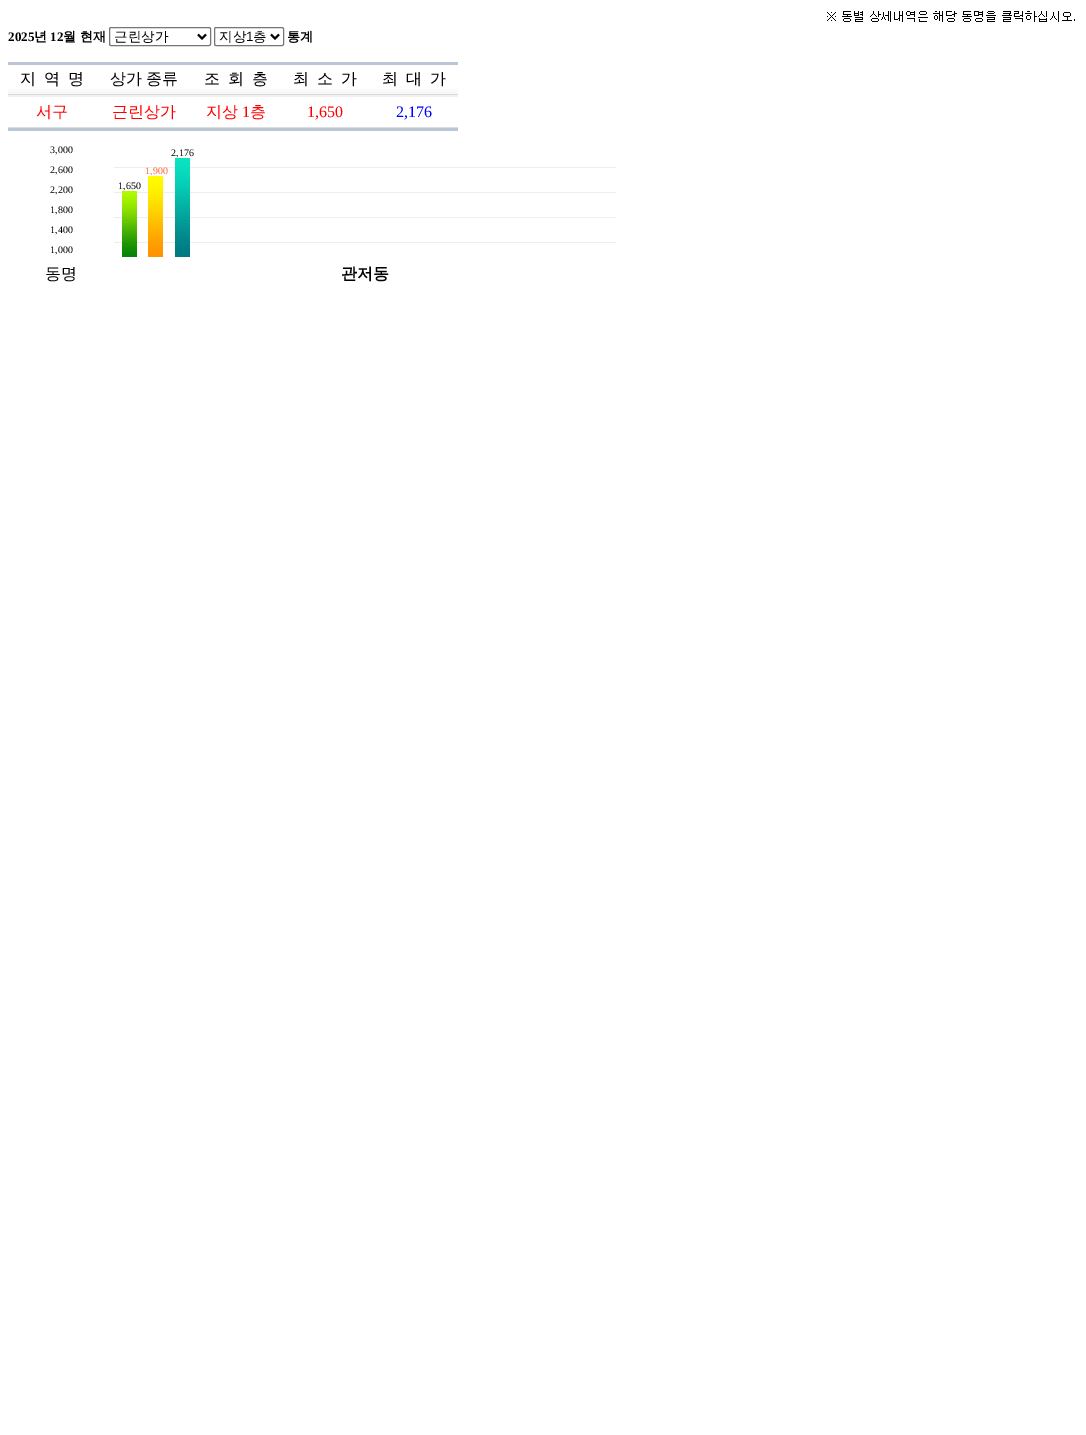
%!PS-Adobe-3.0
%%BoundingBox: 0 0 1086 1435
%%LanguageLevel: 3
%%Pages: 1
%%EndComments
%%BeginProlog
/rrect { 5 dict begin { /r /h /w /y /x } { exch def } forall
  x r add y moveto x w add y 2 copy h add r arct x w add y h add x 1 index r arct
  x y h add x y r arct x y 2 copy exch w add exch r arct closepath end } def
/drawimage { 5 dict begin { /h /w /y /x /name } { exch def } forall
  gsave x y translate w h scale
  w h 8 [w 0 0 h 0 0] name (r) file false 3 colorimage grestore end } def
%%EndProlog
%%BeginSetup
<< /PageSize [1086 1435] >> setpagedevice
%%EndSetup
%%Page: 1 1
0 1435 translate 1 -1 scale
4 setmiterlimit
1 setgray
0 0 1086 1435 rectfill
(images/1.raw) 827 11 248 11 drawimage
0.463 setgray
109.5 27.5 101 18 1.5 rrect stroke
0 setgray
2 setlinewidth
newpath 198 34.5 moveto 202 38.5 lineto 206 34.5 lineto stroke
0.463 setgray
1 setlinewidth
214.5 27.5 69 18 1.5 rrect stroke
0 setgray
2 setlinewidth
newpath 271 34.5 moveto 275 38.5 lineto 279 34.5 lineto stroke
(images/2.raw) 8 62 89 35 drawimage
(images/3.raw) 97 62 94 35 drawimage
(images/2.raw) 191 62 89 35 drawimage
(images/2.raw) 280 62 89 35 drawimage
(images/2.raw) 369 62 89 35 drawimage
0.867 setgray
8 127 450 1 rectfill
0.729 0.776 0.835 setrgbcolor
8 128 450 3 rectfill
(images/4.raw) 114 167 502 76 drawimage
(images/5.raw) 175 158 15 99 drawimage
(images/6.raw) 148 176 15 81 drawimage
(images/7.raw) 122 191 15 66 drawimage
/LiberationSerif-Bold [13 0 0 -13 0 0] selectfont
0 setgray
8 41 moveto (2025) show
/WenQuanYiZenHei-Bold [13 0 0 -13 0 0] selectfont
34 41 moveto (년) show
/LiberationSerif-Bold [13 0 0 -13 0 0] selectfont
50 41 moveto (12) show
/WenQuanYiZenHei-Bold [13 0 0 -13 0 0] selectfont
63 41 moveto (월 현재) show
/WenQuanYiZenHei-Medium [13.5 0 0 -13.5 0 0] selectfont
114 41 moveto (근린상가) show
219 41 moveto (지상) show
/LiberationSans-Regular [13.5 0 0 -13.5 0 0] selectfont
246 41 moveto (1) show
/WenQuanYiZenHei-Medium [13.5 0 0 -13.5 0 0] selectfont
253 41 moveto (층) show
/WenQuanYiZenHei-Bold [13 0 0 -13 0 0] selectfont
287 41 moveto (통계) show
/WenQuanYiZenHei-Medium [16 0 0 -16 0 0] selectfont
20 84 moveto (지) show
44 84 moveto (역) show
68 84 moveto (명) show
110 84 moveto (상가) show
146 84 moveto (종류) show
204 84 moveto (조) show
228 84 moveto (회) show
252 84 moveto (층) show
293 84 moveto (최) show
317 84 moveto (소) show
341 84 moveto (가) show
382 84 moveto (최) show
406 84 moveto (대) show
430 84 moveto (가) show
1 0 0 setrgbcolor
36 117 moveto (서구) show
112 117 moveto (근린상가) show
206 117 moveto (지상) show
/LiberationSerif-Regular [16 0 0 -16 0 0] selectfont
242 117 moveto (1) show
/WenQuanYiZenHei-Medium [16 0 0 -16 0 0] selectfont
250 117 moveto (층) show
/LiberationSerif-Regular [16 0 0 -16 0 0] selectfont
307 117 moveto (1,650) show
0 0 1 setrgbcolor
396 117 moveto (2,176) show
/LiberationSerif-Regular [10 0 0 -10 0 0] selectfont
0 setgray
50 153 moveto (3,000) show
171 156 moveto (2,176) show
1 0.4 0.2 setrgbcolor
145 174 moveto (1,900) show
0 setgray
118 189 moveto (1,650) show
50 173 moveto (2,600) show
50 193 moveto (2,200) show
50 213 moveto (1,800) show
50 233 moveto (1,400) show
50 253 moveto (1,000) show
/WenQuanYiZenHei-Medium [16 0 0 -16 0 0] selectfont
45 279 moveto (동명) show
/WenQuanYiZenHei-Bold [16 0 0 -16 0 0] selectfont
341 279 moveto (관저동) show
showpage
%%EOF
